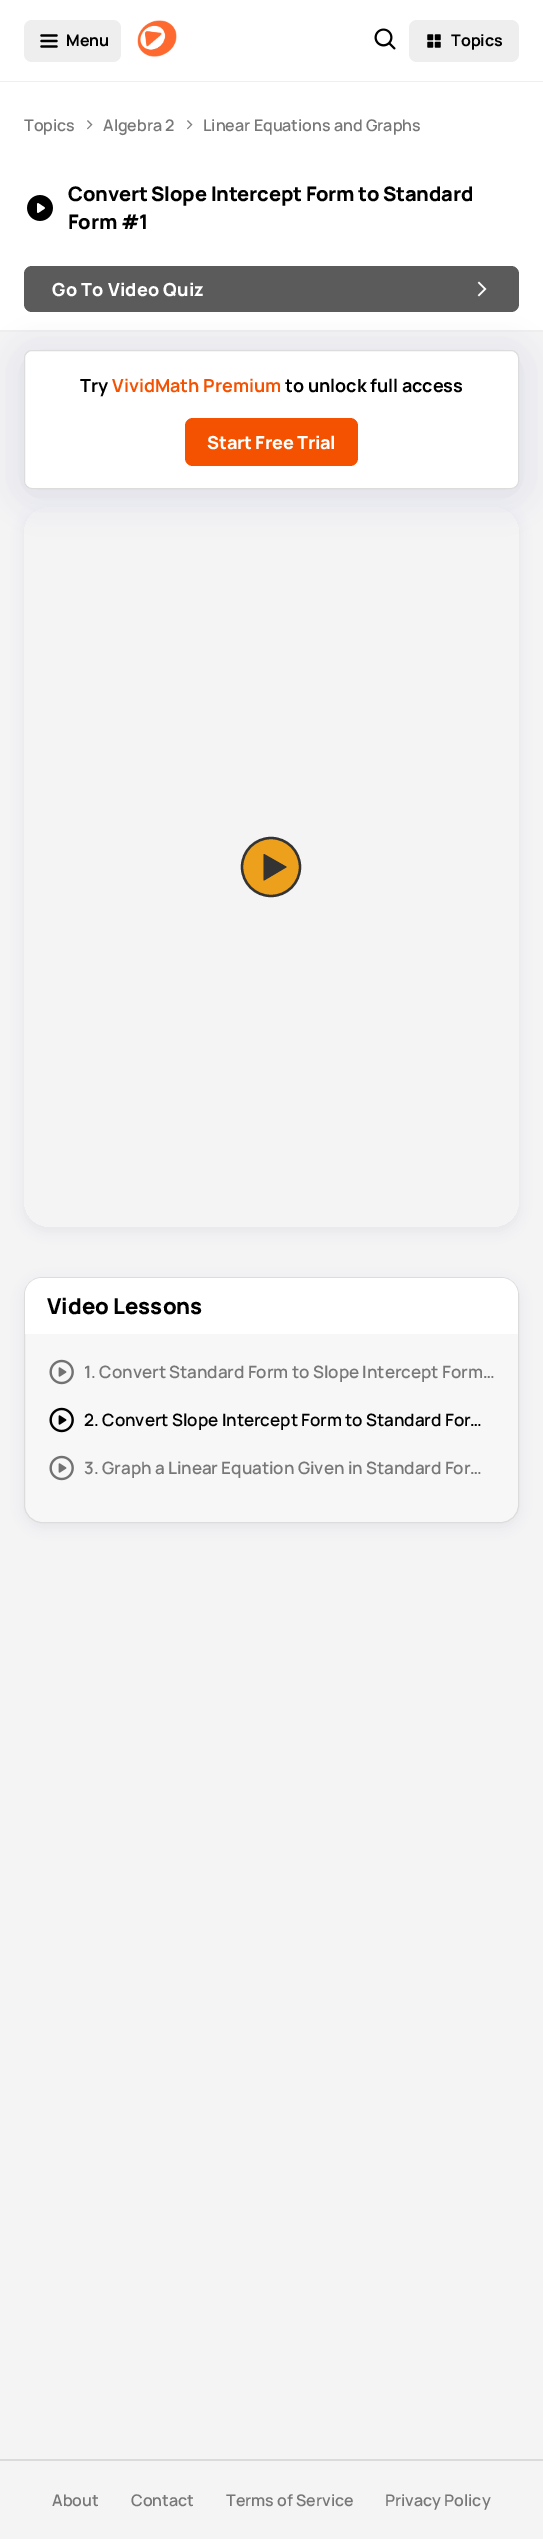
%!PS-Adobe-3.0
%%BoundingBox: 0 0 543 2539
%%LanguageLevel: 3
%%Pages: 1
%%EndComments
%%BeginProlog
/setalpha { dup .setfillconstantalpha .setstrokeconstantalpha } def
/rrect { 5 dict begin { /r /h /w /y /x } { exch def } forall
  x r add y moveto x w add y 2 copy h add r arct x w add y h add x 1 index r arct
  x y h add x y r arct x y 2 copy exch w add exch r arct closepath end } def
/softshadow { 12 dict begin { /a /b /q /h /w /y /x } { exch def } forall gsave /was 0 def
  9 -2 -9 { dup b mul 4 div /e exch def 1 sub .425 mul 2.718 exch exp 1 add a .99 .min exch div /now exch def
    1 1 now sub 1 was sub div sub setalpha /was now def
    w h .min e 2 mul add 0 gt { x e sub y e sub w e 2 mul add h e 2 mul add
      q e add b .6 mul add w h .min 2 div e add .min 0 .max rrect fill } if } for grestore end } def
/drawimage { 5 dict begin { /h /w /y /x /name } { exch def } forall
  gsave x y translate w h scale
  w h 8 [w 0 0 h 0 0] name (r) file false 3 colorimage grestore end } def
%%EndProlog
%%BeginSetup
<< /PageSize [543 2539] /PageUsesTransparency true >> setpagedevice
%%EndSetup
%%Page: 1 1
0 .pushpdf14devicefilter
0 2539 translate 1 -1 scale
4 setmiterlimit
0.957 setgray
0 0 543 2539 rectfill
1 setgray
0 0 543 81 rectfill
0.937 setgray
0 81 543 1 rectfill
0.933 setgray
24 20 97 42 8 rrect fill
0 setgray
2.2 setlinewidth
1 setlinecap
1 setlinejoin
newpath 41.5 46.5 moveto 56.5 46.5 lineto 41.5 41 moveto 56.5 41 lineto 41.5 35.5 moveto 56.5 35.5 lineto stroke
(images/1.raw) 137 20 40 37 drawimage
(images/2.raw) 374 28 22 22 drawimage
0.933 setgray
409 20 110 42 8 rrect fill
(images/3.raw) 427 34 14 14 drawimage
1 setgray
0 82 543 248 rectfill
0.937 setgray
0 330 543 2 rectfill
(images/4.raw) 27 195 26 26 drawimage
0.357 setgray
24 266 495 46 8 rrect fill
(images/5.raw) 477 281 10 16 drawimage
0.651 0.678 0.788 setrgbcolor
24 355 495 139 8 15 0.22 softshadow
0.604 0.627 0.725 setrgbcolor
24 355 495 139 8 25 0.15 softshadow
1 setgray
24.5 350.5 494 138 7.5 rrect gsave fill grestore
0.863 setgray
1 setlinewidth
0 setlinecap
0 setlinejoin
stroke
0.957 0.318 0 setrgbcolor
185 418 173 48 8 rrect fill
gsave
newpath 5 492 moveto 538 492 lineto 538 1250 lineto 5 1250 lineto closepath 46 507 moveto 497 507 lineto 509 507 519 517 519 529 curveto 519 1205 lineto 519 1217 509 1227 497 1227 curveto 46 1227 lineto 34 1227 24 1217 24 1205 curveto 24 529 lineto 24 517 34 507 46 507 curveto closepath eoclip newpath
0.388 0.427 0.459 setrgbcolor
24 511 495 720 22 6 0.1 softshadow
grestore
0.929 0.627 0.11 setrgbcolor
newpath 271 867 29 0 360 arc closepath gsave fill grestore
0.2 setgray
2.3 setlinewidth
stroke
0.2 setlinewidth
1 setlinecap
1 setlinejoin
newpath 264.5 855 moveto 285.5 867 lineto 264.5 879.5 lineto closepath stroke
newpath 264 854.5 moveto 286 867 lineto 264 880 lineto closepath gsave eofill grestore
0.9 setlinewidth
stroke
0.388 0.427 0.459 setrgbcolor
24 1281 495 246 18 6 0.1 softshadow
0.969 setgray
24.5 1277.5 494 245 17.5 rrect gsave fill grestore
0.863 setgray
1 setlinewidth
0 setlinecap
0 setlinejoin
stroke
1 setgray
newpath 42 1278 moveto 501 1278 lineto 510.5 1278 518 1285.5 518 1295 curveto 518 1334 lineto 25 1334 lineto 25 1295 lineto 25 1285.5 32.5 1278 42 1278 curveto closepath fill
(images/6.raw) 49 1359 25 26 drawimage
(images/7.raw) 49 1407 25 26 drawimage
(images/6.raw) 49 1455 25 26 drawimage
0.859 setgray
0 2459 543 2 rectfill
/Manrope-Bold [16 0 0 -16 0 0] selectfont
0 setgray
66 46 moveto (Menu) show
451 46 moveto (Topics) show
/Manrope-SemiBold [16 0 0 -16 0 0] selectfont
0.467 setgray
24 131 moveto (Topics) show
/Manrope-Regular [20 0 0 -20 0 0] selectfont
0.498 setgray
83 131 moveto (>) show
/Manrope-SemiBold [16 0 0 -16 0 0] selectfont
0.467 setgray
103 131 moveto (Algebra 2) show
/Manrope-Regular [20 0 0 -20 0 0] selectfont
0.498 setgray
183 131 moveto (>) show
/Manrope-SemiBold [16 0 0 -16 0 0] selectfont
0.467 setgray
203 131 moveto (Linear Equations and Graphs) show
/Manrope-ExtraBold [20 0 0 -20 0 0] selectfont
0 setgray
68 201 moveto -0.2 0 (Convert Slope Intercept Form to Standard) ashow
68 229 moveto -0.2 0 (Form #1) ashow
/Manrope-ExtraBold [18 0 0 -18 0 0] selectfont
1 setgray
52 296 moveto 0.25 0 (Go To Video Quiz) ashow
/Manrope-Bold [18 0 0 -18 0 0] selectfont
0 setgray
80 392 moveto (Try) show
0.957 0.318 0 setrgbcolor
112 392 moveto (VividMath Premium) show
0 setgray
285 392 moveto (to unlock full access) show
/Manrope-ExtraBold [18 0 0 -18 0 0] selectfont
1 setgray
207 449 moveto -0.2 0 (Start Free Trial) ashow
/Manrope-ExtraBold [22 0 0 -22 0 0] selectfont
0 setgray
47 1314 moveto (Video Lessons) show
/Manrope-SemiBold [17 0 0 -17 0 0] selectfont
0.467 setgray
84 1378 moveto (1. Convert Standard Form to Slope Intercept Form…) show
0 setgray
84 1426 moveto (2. Convert Slope Intercept Form to Standard For…) show
0.467 setgray
84 1474 moveto (3. Graph a Linear Equation Given in Standard For…) show
/Manrope-SemiBold [16 0 0 -16 0 0] selectfont
52 2506 moveto (About) show
131 2506 moveto (Contact) show
226 2506 moveto (Terms of Service) show
385 2506 moveto (Privacy Policy) show
.poppdf14devicefilter showpage
%%EOF
